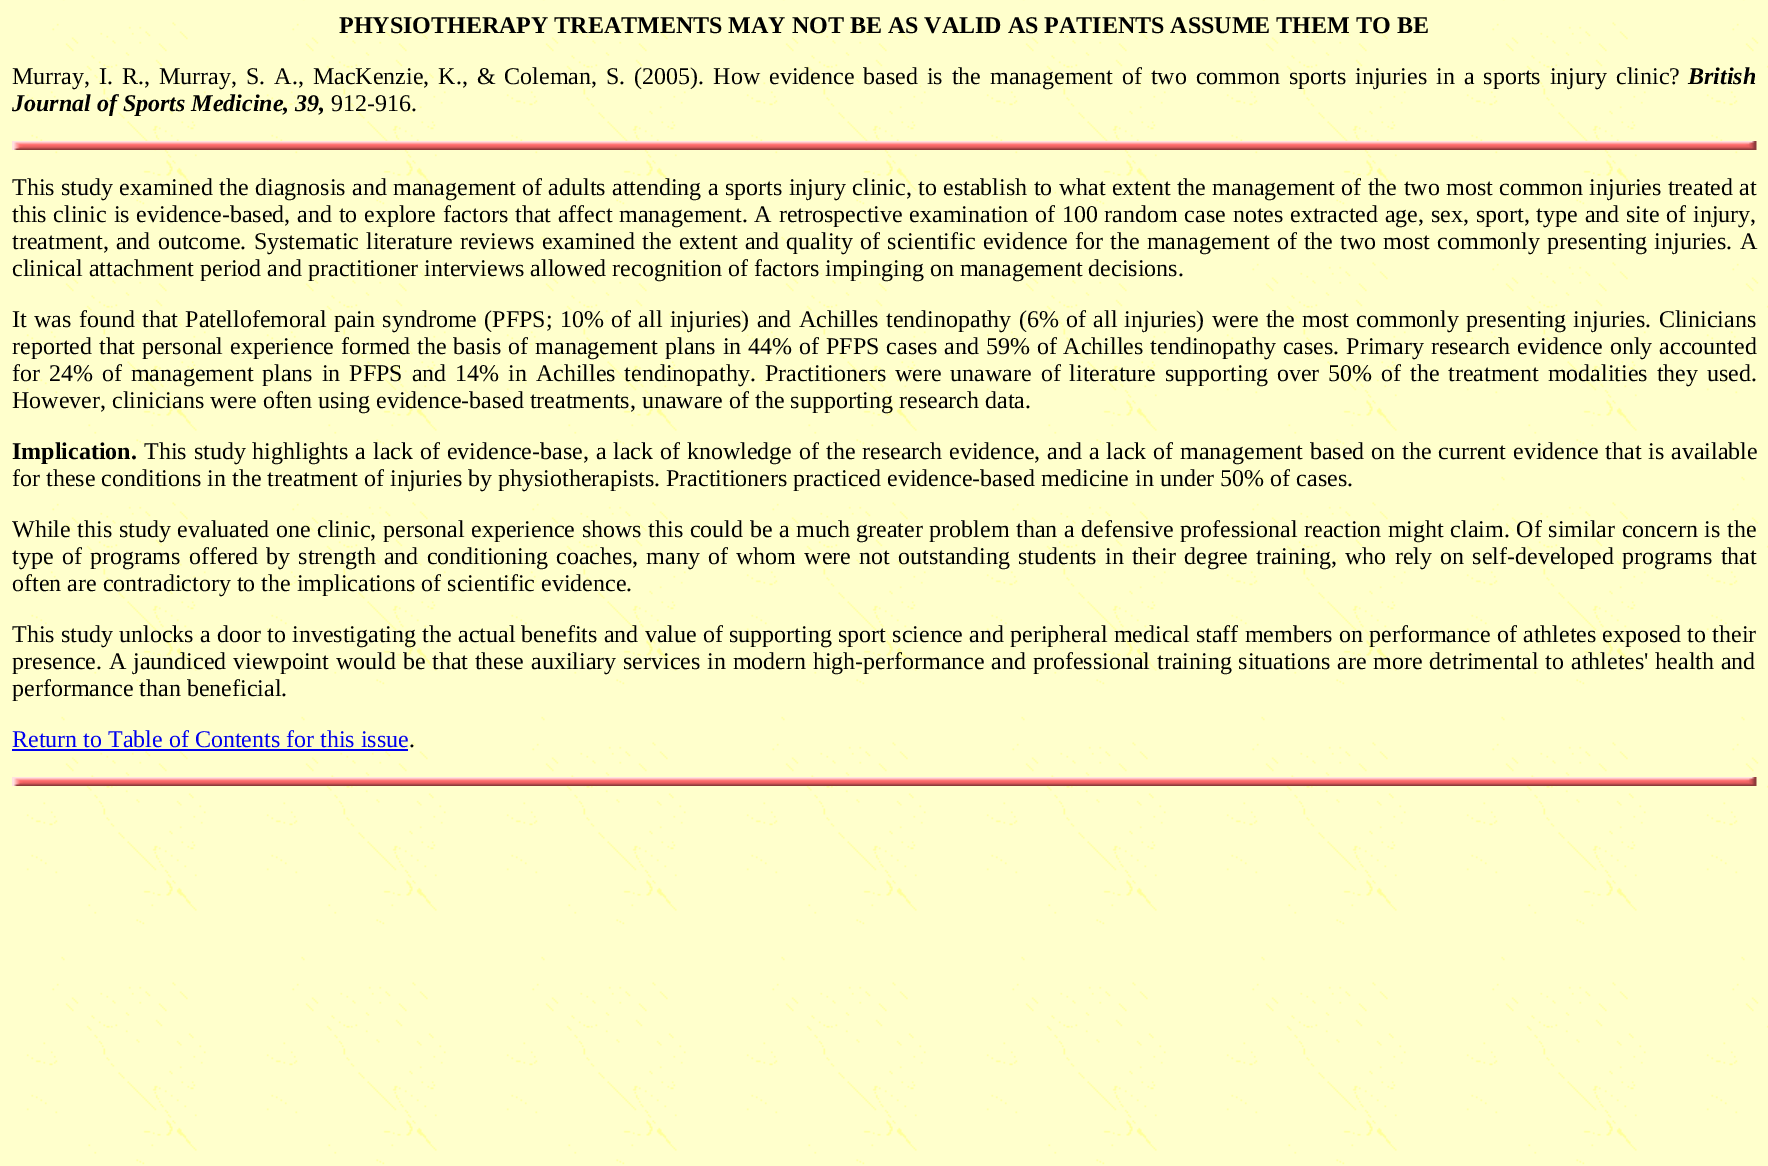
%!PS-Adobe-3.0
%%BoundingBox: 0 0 1768 1166
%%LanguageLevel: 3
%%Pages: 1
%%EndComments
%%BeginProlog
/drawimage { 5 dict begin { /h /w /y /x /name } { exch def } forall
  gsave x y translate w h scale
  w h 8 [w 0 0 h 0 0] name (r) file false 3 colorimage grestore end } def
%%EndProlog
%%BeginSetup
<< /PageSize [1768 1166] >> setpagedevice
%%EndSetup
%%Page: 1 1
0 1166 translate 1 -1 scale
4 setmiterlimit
1 setgray
0 0 1768 1166 rectfill
(images/1.raw) 0 0 1768 1166 drawimage
(images/2.raw) 12 141 1745 9 drawimage
0 0 0.933 setrgbcolor
12 749 396 2 rectfill
(images/2.raw) 12 777 1745 9 drawimage
/LiberationSerif-Bold [24 0 0 -24 0 0] selectfont
0 setgray
339 33 moveto (PHYSIOTHERAPY TREATMENTS MAY NOT BE AS VALID AS PATIENTS ASSUME THEM TO BE) show
/LiberationSerif-Regular [24 0 0 -24 0 0] selectfont
12 84 moveto 3 0 32 (Murray, I. R., Murray, S. A., MacKenzie, K., & Coleman, S. \(2005\). How evidence based is the management of two common sports injuries in a sports injury clinic?) widthshow
/LiberationSerif-BoldItalic [24 0 0 -24 0 0] selectfont
1688 84 moveto (British) show
12 111 moveto (Journal of Sports Medicine, 39,) show
/LiberationSerif-Regular [24 0 0 -24 0 0] selectfont
331 111 moveto (912-916.) show
12 195 moveto 0.4 0 32 (This study examined the diagnosis and management of adults attending a sports injury clinic, to establish to what extent the management of the two most common injuries treated at) widthshow
12 222 moveto 0.8 0 32 (this clinic is evidence-based, and to explore factors that affect management. A retrospective examination of 100 random case notes extracted age, sex, sport, type and site of injury,) widthshow
12 249 moveto 1.2 0 32 (treatment, and outcome. Systematic literature reviews examined the extent and quality of scientific evidence for the management of the two most commonly presenting injuries. A) widthshow
12 276 moveto (clinical attachment period and practitioner interviews allowed recognition of factors impinging on management decisions.) show
12 327 moveto 1.3 0 32 (It was found that Patellofemoral pain syndrome \(PFPS; 10% of all injuries\) and Achilles tendinopathy \(6% of all injuries\) were the most commonly presenting injuries. Clinicians) widthshow
12 354 moveto 0.95 0 32 (reported that personal experience formed the basis of management plans in 44% of PFPS cases and 59% of Achilles tendinopathy cases. Primary research evidence only accounted) widthshow
12 381 moveto 2.9 0 32 (for 24% of management plans in PFPS and 14% in Achilles tendinopathy. Practitioners were unaware of literature supporting over 50% of the treatment modalities they used.) widthshow
12 408 moveto (However, clinicians were often using evidence-based treatments, unaware of the supporting research data.) show
/LiberationSerif-Bold [24 0 0 -24 0 0] selectfont
12 459 moveto (Implication.) show
/LiberationSerif-Regular [24 0 0 -24 0 0] selectfont
144 459 moveto 0.9 0 32 (This study highlights a lack of evidence-base, a lack of knowledge of the research evidence, and a lack of management based on the current evidence that is available) widthshow
12 486 moveto (for these conditions in the treatment of injuries by physiotherapists. Practitioners practiced evidence-based medicine in under 50% of cases.) show
12 537 moveto 0.65 0 32 (While this study evaluated one clinic, personal experience shows this could be a much greater problem than a defensive professional reaction might claim. Of similar concern is the) widthshow
12 564 moveto 2.2 0 32 (type of programs offered by strength and conditioning coaches, many of whom were not outstanding students in their degree training, who rely on self-developed programs that) widthshow
12 591 moveto (often are contradictory to the implications of scientific evidence.) show
12 642 moveto 0.25 0 32 (This study unlocks a door to investigating the actual benefits and value of supporting sport science and peripheral medical staff members on performance of athletes exposed to their) widthshow
12 669 moveto 0.8 0 32 (presence. A jaundiced viewpoint would be that these auxiliary services in modern high-performance and professional training situations are more detrimental to athletes' health and) widthshow
12 696 moveto (performance than beneficial.) show
0 0 0.933 setrgbcolor
12 747 moveto (Return to Table of Contents for this issue) show
0 setgray
409 747 moveto (.) show
showpage
%%EOF
